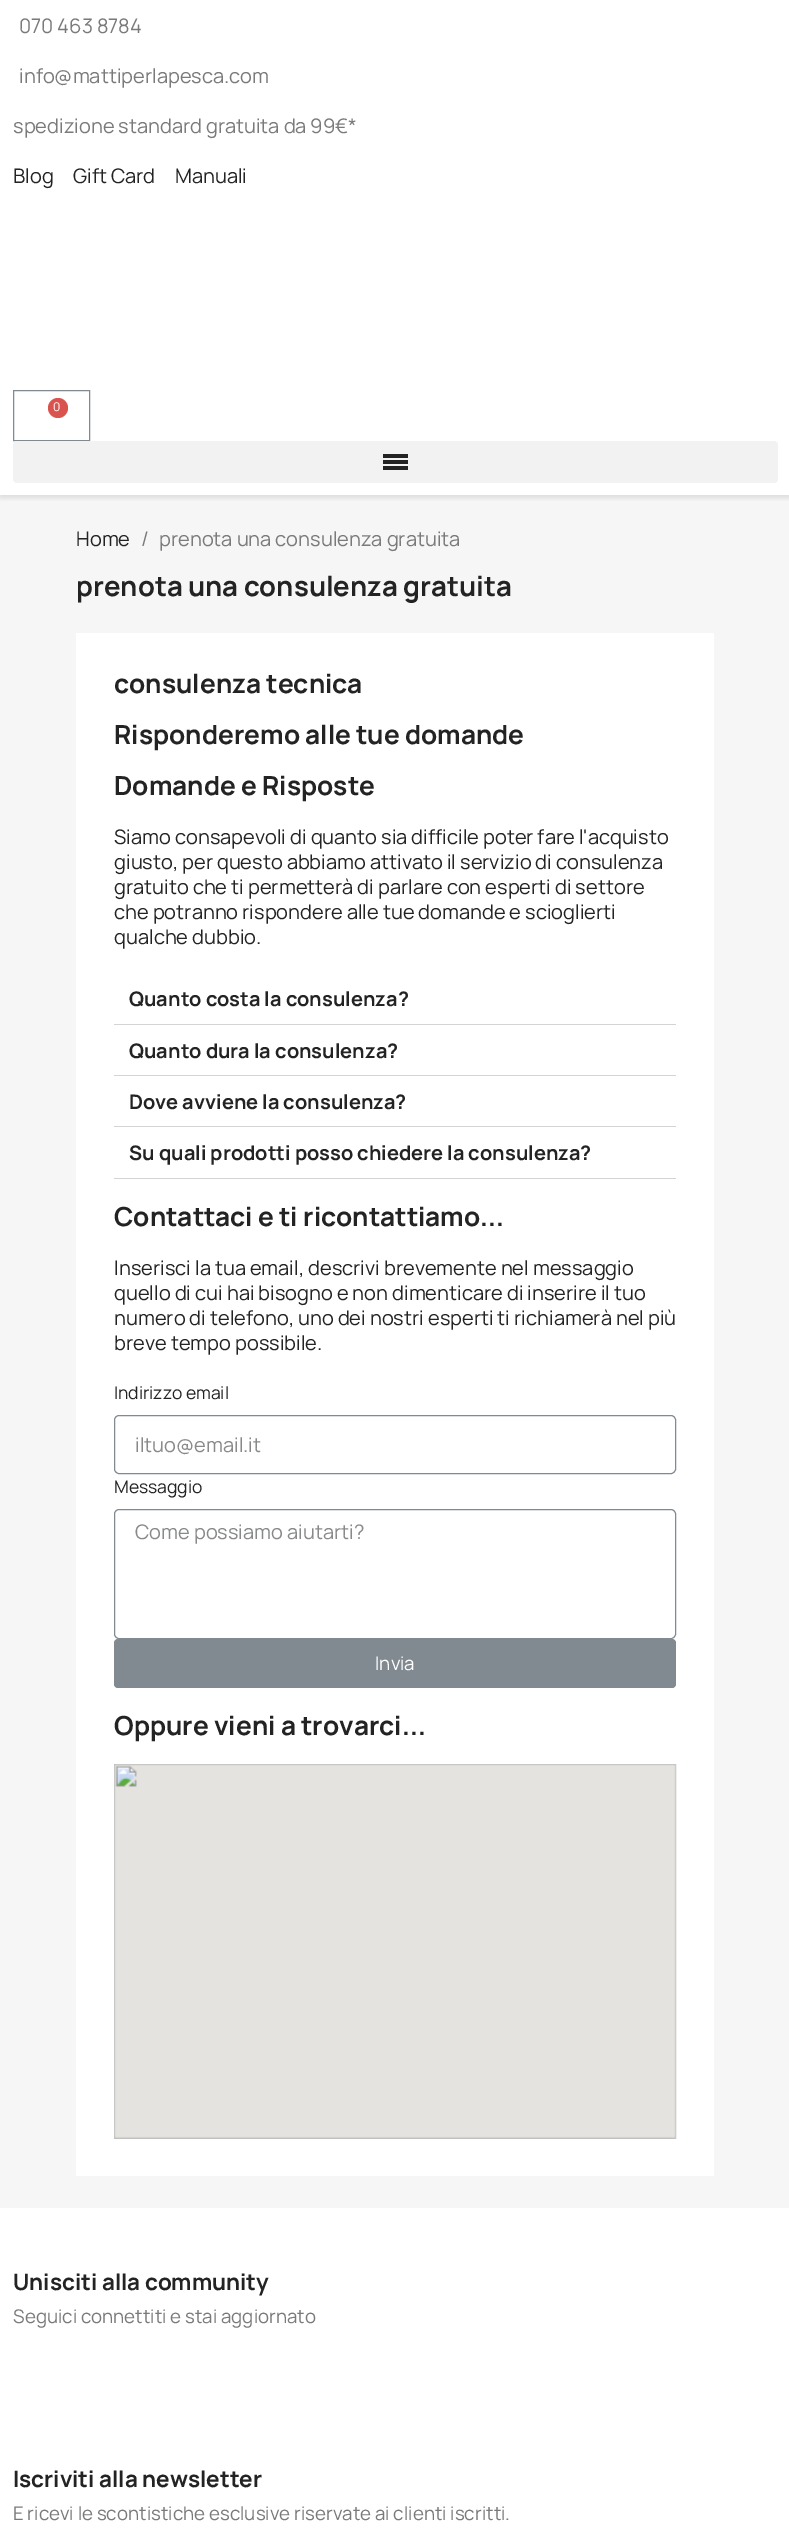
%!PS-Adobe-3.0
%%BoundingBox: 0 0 789 2532
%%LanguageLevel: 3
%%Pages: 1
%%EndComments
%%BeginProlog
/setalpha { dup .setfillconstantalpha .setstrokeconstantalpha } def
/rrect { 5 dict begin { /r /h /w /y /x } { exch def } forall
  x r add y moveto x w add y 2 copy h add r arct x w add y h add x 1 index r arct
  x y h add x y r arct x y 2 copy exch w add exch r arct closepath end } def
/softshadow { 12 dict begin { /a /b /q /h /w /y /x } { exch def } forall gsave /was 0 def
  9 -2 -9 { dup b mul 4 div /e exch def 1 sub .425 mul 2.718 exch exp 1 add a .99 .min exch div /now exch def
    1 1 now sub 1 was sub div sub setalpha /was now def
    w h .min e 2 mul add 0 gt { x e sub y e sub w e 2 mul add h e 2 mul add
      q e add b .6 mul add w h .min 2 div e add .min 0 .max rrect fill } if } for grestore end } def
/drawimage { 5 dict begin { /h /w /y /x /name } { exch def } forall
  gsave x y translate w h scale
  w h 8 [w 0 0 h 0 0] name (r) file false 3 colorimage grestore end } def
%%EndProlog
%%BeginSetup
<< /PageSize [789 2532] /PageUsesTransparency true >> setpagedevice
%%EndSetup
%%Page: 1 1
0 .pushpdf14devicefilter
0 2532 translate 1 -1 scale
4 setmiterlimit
1 setgray
0 0 789 2532 rectfill
0.965 setgray
0 495 789 1713 rectfill
gsave
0 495 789 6 rectclip
0 setgray
0 3 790 495 0 3 0.11 softshadow
grestore
0.506 0.541 0.569 setrgbcolor
13.5 390.5 76 50 rectstroke
0.851 0.325 0.31 setrgbcolor
newpath 58 408 10 0 360 arc closepath fill
0.949 setgray
13 441 765 42 4 rrect fill
0.137 setgray
383 460 25 4 rectfill
383 454 25 4 rectfill
383 466 25 4 rectfill
1 setgray
76 633 638 1543 rectfill
0.831 setgray
114 1024 562 1 rectfill
114 1075 562 1 rectfill
114 1126 562 1 rectfill
114 1178 562 1 rectfill
0.506 0.541 0.569 setrgbcolor
114.5 1415.5 561 58 4.5 rrect stroke
114.5 1509.5 561 129 4.5 rrect stroke
114 1639 562 49 4 rrect fill
(images/1.raw) 114 1764 563 375 drawimage
/Manrope-Regular [20 0 0 -20 0 0] selectfont
0.478 setgray
19 33 moveto (070 463 8784) show
19 83 moveto (info@mattiperlapesca.com) show
13 133 moveto (spedizione standard gratuita da 99€*) show
0.137 setgray
13 183 moveto (Blog) show
73 183 moveto (Gift Card) show
175 183 moveto (Manuali) show
/Manrope-Regular [12 0 0 -12 0 0] selectfont
1 setgray
53 411 moveto (0) show
/Manrope-Regular [20 0 0 -20 0 0] selectfont
0.137 setgray
76 546 moveto (Home) show
0.478 setgray
141 546 moveto (/) show
159 546 moveto (prenota una consulenza gratuita) show
/Manrope-Bold [27.5 0 0 -27.5 0 0] selectfont
0.137 setgray
76 596 moveto (prenota una consulenza gratuita) show
/Manrope-Bold [26.25 0 0 -26.25 0 0] selectfont
114 693 moveto (consulenza tecnica) show
114 744 moveto (Risponderemo alle tue domande) show
114 795 moveto (Domande e Risposte) show
/Manrope-Regular [20 0 0 -20 0 0] selectfont
114 844 moveto (Siamo consapevoli di quanto sia difficile poter fare l'acquisto) show
114 869 moveto (giusto, per questo abbiamo attivato il servizio di consulenza) show
114 894 moveto (gratuito che ti permetterà di parlare con esperti di settore) show
114 919 moveto (che potranno rispondere alle tue domande e scioglierti) show
114 944 moveto (qualche dubbio.) show
/Manrope-Bold [20 0 0 -20 0 0] selectfont
129 1006 moveto (Quanto costa la consulenza?) show
129 1058 moveto (Quanto dura la consulenza?) show
129 1109 moveto (Dove avviene la consulenza?) show
129 1160 moveto (Su quali prodotti posso chiedere la consulenza?) show
/Manrope-Bold [26.25 0 0 -26.25 0 0] selectfont
114 1226 moveto (Contattaci e ti ricontattiamo...) show
/Manrope-Regular [20 0 0 -20 0 0] selectfont
114 1275 moveto (Inserisci la tua email, descrivi brevemente nel messaggio) show
114 1300 moveto (quello di cui hai bisogno e non dimenticare di inserire il tuo) show
114 1325 moveto (numero di telefono, uno dei nostri esperti ti richiamerà nel più) show
114 1350 moveto (breve tempo possibile.) show
/Manrope-Regular [17.5 0 0 -17.5 0 0] selectfont
114 1399 moveto (Indirizzo email) show
/Manrope-Regular [20 0 0 -20 0 0] selectfont
0.529 0.537 0.541 setrgbcolor
135 1452 moveto (iltuo@email.it) show
/Manrope-Regular [17.5 0 0 -17.5 0 0] selectfont
0.137 setgray
114 1493 moveto (Messaggio) show
/Manrope-Regular [20 0 0 -20 0 0] selectfont
0.529 0.537 0.541 setrgbcolor
135 1539 moveto (Come possiamo aiutarti?) show
/Manrope-Regular [18.75 0 0 -18.75 0 0] selectfont
1 setgray
375 1670 moveto (Invia) show
/Manrope-Bold [26.25 0 0 -26.25 0 0] selectfont
0.137 setgray
114 1735 moveto (Oppure vieni a trovarci...) show
/Manrope-Bold [22.5 0 0 -22.5 0 0] selectfont
13 2290 moveto (Unisciti alla community) show
/Manrope-Regular [18.75 0 0 -18.75 0 0] selectfont
0.478 setgray
13 2323 moveto (Seguici connettiti e stai aggiornato) show
/Manrope-Bold [22.5 0 0 -22.5 0 0] selectfont
0.137 setgray
13 2487 moveto (Iscriviti alla newsletter) show
/Manrope-Regular [18.75 0 0 -18.75 0 0] selectfont
0.478 setgray
13 2520 moveto (E ricevi le scontistiche esclusive riservate ai clienti iscritti.) show
.poppdf14devicefilter showpage
%%EOF
